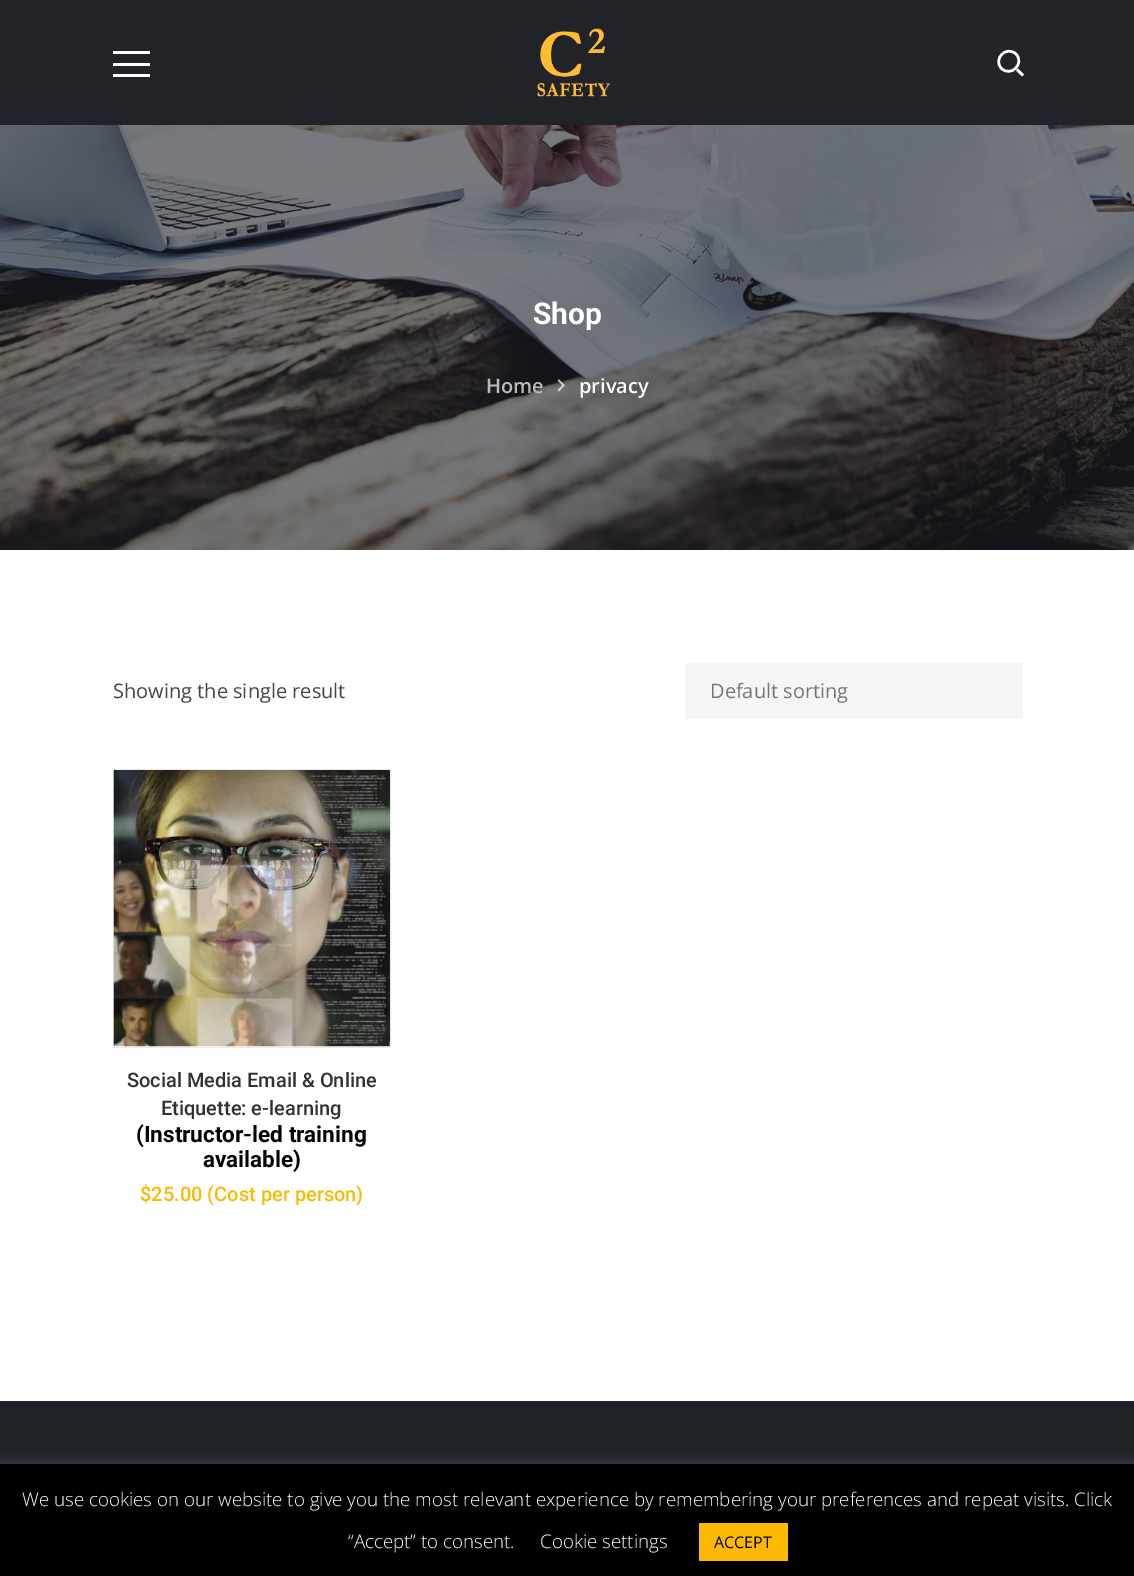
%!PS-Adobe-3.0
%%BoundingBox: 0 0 1134 1576
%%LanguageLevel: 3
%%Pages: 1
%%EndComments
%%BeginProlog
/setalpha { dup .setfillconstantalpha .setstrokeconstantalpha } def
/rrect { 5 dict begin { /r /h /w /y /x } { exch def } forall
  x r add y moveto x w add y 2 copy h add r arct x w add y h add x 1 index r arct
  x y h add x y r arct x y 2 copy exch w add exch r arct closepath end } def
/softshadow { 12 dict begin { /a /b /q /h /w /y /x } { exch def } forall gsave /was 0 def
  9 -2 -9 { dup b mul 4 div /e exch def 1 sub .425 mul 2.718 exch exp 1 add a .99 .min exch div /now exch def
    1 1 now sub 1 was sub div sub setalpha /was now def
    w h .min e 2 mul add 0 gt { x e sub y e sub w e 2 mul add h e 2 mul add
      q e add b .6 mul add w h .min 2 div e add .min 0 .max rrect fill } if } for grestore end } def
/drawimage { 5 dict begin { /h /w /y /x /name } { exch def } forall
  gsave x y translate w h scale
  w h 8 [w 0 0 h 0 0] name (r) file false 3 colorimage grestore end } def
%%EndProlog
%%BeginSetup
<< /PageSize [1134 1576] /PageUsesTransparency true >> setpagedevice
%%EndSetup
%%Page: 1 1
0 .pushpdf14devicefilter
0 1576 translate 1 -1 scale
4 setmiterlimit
1 setgray
0 0 1134 1576 rectfill
0.133 0.137 0.157 setrgbcolor
0 0 1134 125 rectfill
1 setgray
113 51 37 3 rectfill
113 63 37 3 rectfill
113 74 37 3 rectfill
(images/1.raw) 537 28 73 69 drawimage
2.5 setlinewidth
newpath 1016 54 moveto 1025 63.5 1011 77.5 1001.5 68.5 curveto 992.5 59 1006.5 45 1016 54 curveto closepath stroke
newpath 1016 70.5 moveto 1018 68.5 lineto 1024 74.5 lineto 1022 76.5 lineto closepath fill
(images/2.raw) 0 125 1134 425 drawimage
(images/3.raw) 557 379 8 13 drawimage
0.965 setgray
685 663 338 56 rectfill
0.922 0.922 0.933 setrgbcolor
1 setlinewidth
113.5 769.5 277 278 rectstroke
(images/4.raw) 113 770 277 277 drawimage
0.118 0.133 0.153 setrgbcolor
0 1401 1134 63 rectfill
0.675 0.671 0.671 setrgbcolor
0 1463 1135 112 0 6 0.3 softshadow
0 setgray
0 1464 1134 112 rectfill
0.992 0.725 0 setrgbcolor
699 1523 89 38 rectfill
/Roboto-Bold [30 0 0 -30 0 0] selectfont
1 setgray
533 324 moveto (Shop) show
/OpenSans-SemiBold [20 0 0 -20 0 0] selectfont
0.737 0.733 0.737 setrgbcolor
486 393 moveto (Home) show
1 setgray
579 393 moveto (privacy) show
/OpenSans-Regular [20 0 0 -20 0 0] selectfont
0.267 0.275 0.29 setrgbcolor
113 698 moveto (Showing the single result) show
0.463 setgray
710 698 moveto (Default sorting) show
/Roboto-Medium [20 0 0 -20 0 0] selectfont
0.192 setgray
127 1087 moveto (Social Media Email & Online) show
161 1115 moveto (Etiquette: e-learning) show
/Roboto-Bold [22.5 0 0 -22.5 0 0] selectfont
0 setgray
136 1142 moveto (\(Instructor-led training) show
203 1167 moveto (available\)) show
/Roboto-Medium [20 0 0 -20 0 0] selectfont
0.992 0.725 0 setrgbcolor
140 1201 moveto ($25.00 \(Cost per person\)) show
/OpenSans-Light [18.75 0 0 -18.75 0 0] selectfont
1 setgray
22 1506 moveto (We use cookies on our website to give you the most relevant experience by remembering your preferences and repeat visits. Click) show
348 1548 moveto (“Accept” to consent.) show
540 1548 moveto (Cookie settings) show
/OpenSans-Regular [16 0 0 -16 0 0] selectfont
0 setgray
714 1548 moveto (ACCEPT) show
.poppdf14devicefilter showpage
%%EOF
